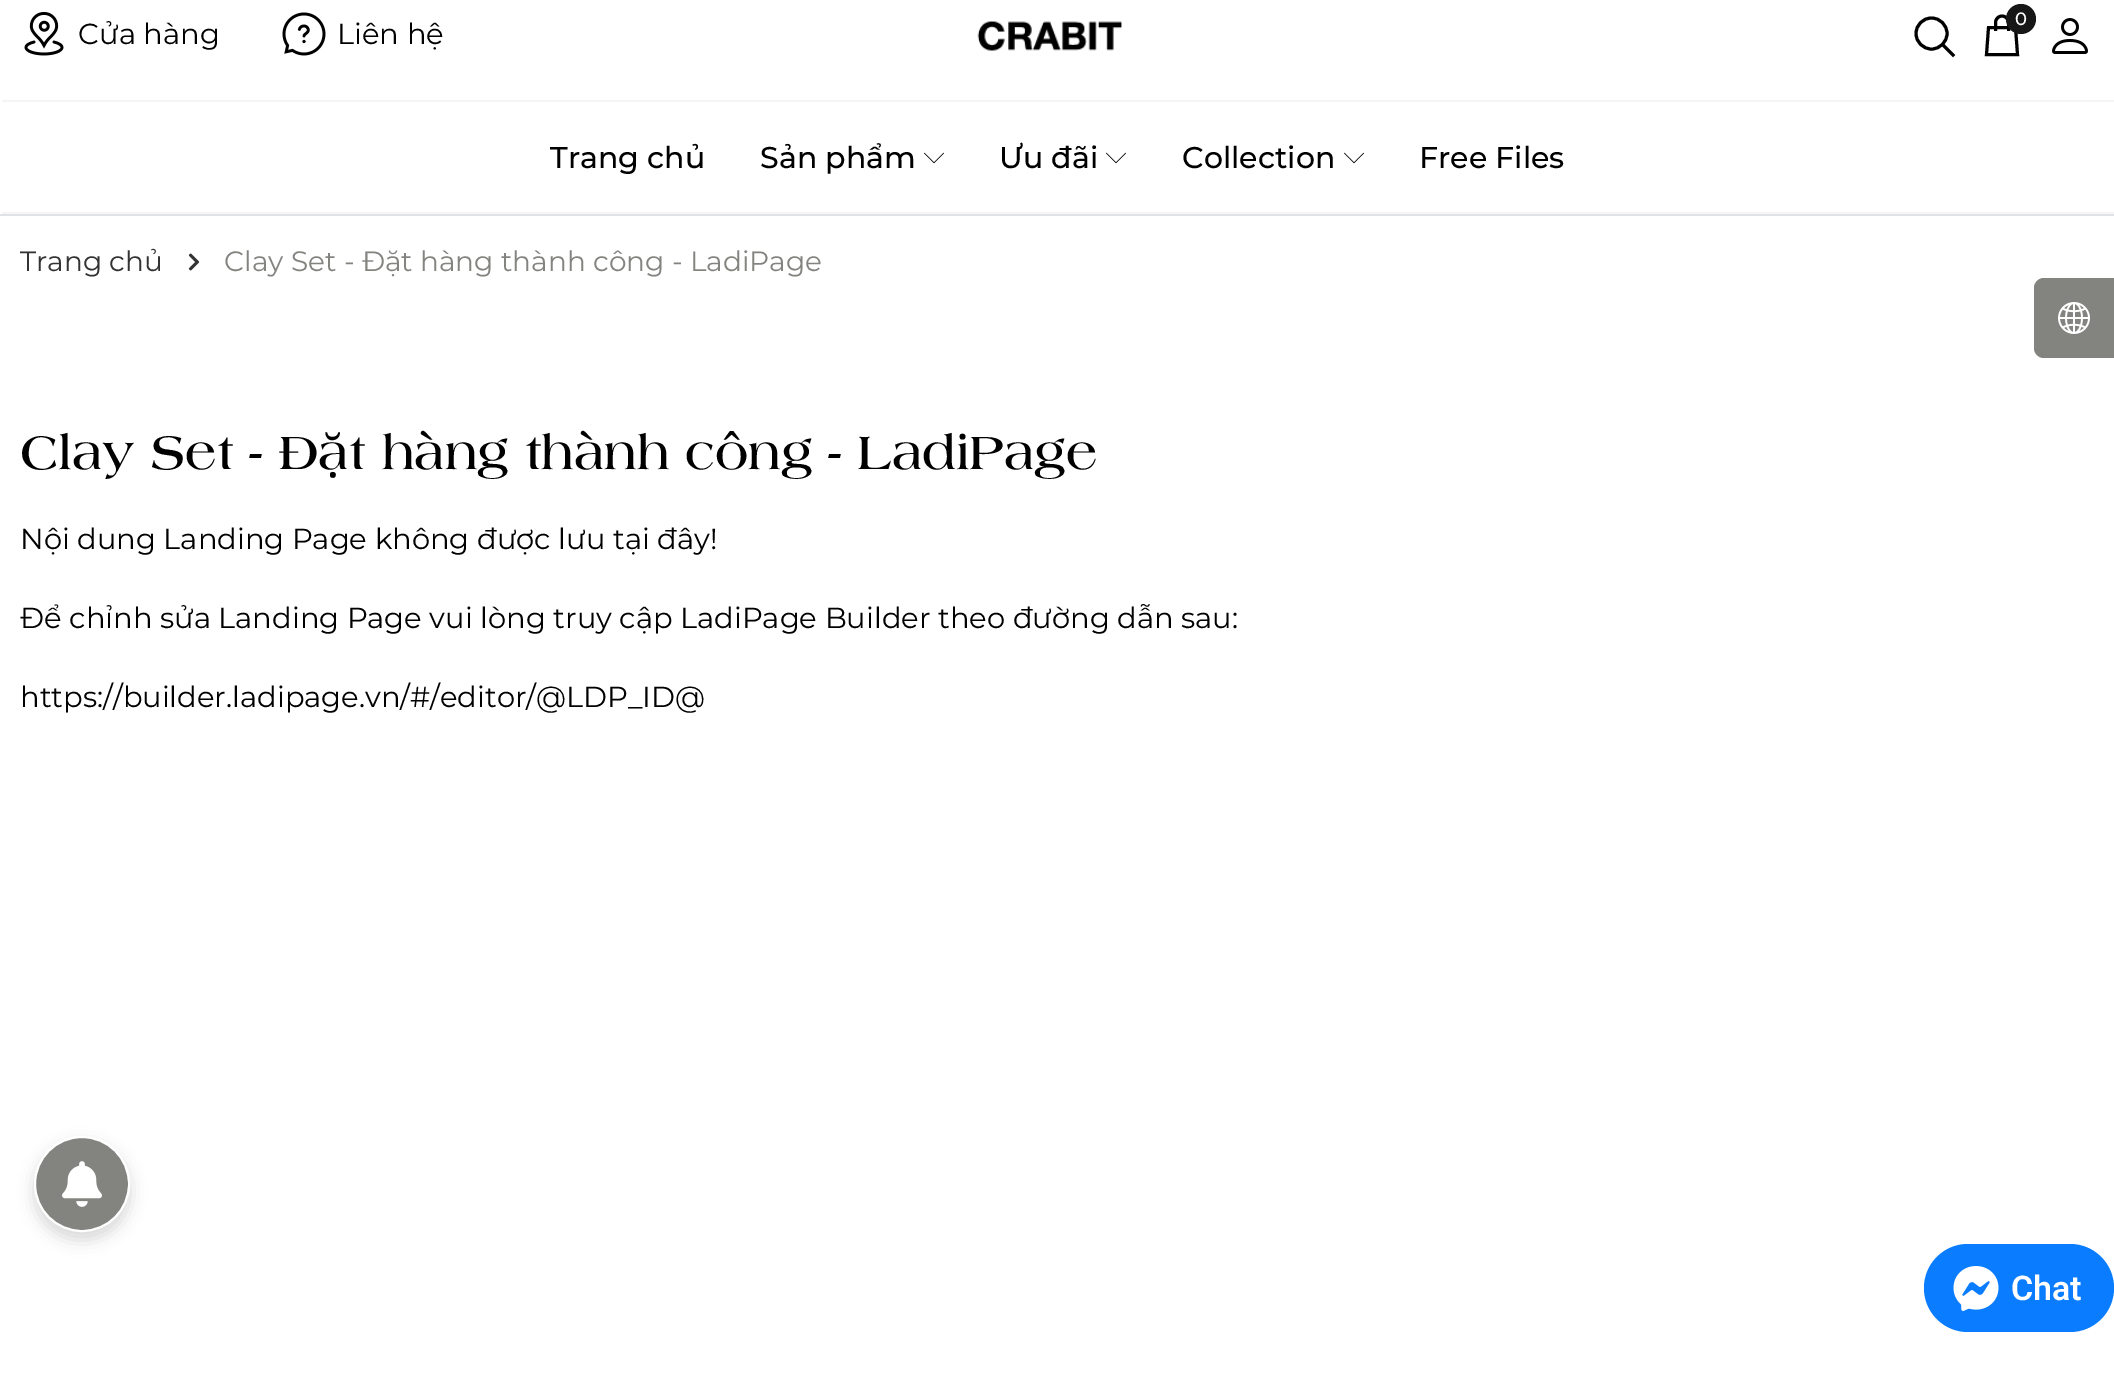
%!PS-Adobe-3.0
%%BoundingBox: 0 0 2114 1391
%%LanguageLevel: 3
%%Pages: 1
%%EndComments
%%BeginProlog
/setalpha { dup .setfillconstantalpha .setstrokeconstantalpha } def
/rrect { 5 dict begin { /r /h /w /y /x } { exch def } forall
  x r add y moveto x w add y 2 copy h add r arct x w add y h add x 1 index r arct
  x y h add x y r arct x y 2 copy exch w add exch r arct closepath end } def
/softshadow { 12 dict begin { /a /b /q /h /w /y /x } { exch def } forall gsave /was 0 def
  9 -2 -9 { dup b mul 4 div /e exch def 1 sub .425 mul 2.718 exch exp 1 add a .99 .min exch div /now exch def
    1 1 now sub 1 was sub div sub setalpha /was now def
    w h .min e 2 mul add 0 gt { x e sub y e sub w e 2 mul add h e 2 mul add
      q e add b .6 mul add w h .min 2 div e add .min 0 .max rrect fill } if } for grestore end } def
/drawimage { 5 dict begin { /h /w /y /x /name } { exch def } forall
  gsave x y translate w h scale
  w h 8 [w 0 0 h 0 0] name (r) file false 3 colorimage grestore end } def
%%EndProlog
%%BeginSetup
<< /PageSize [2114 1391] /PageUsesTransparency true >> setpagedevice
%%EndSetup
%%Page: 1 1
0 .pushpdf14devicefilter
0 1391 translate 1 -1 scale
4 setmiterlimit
1 setgray
0 0 2114 1391 rectfill
0.875 0.89 0.91 setrgbcolor
0 214 2114 2 rectfill
0 setgray
3 setlinewidth
newpath 1931.5 33.5 15.5 0 360 arc closepath stroke
2 setlinecap
newpath 1944 46 moveto 1953 55 lineto stroke
0 setlinecap
newpath 2008.5 31 moveto 2008.5 22.5 lineto 2008.5 19 2005.5 16 2002 16 curveto 1998.5 16 1995.5 19 1995.5 22.5 curveto 1995.5 31 lineto 1988.5 27.5 moveto 2015.5 27.5 lineto 2017.5 54.5 lineto 1986.5 54.5 lineto closepath stroke
0.09 setgray
newpath 2021 19 15 0 360 arc closepath fill
(images/1.raw) 2052 18 36 36 drawimage
(images/2.raw) 24 12 40 44 drawimage
(images/3.raw) 282 12 44 44 drawimage
(images/4.raw) 977 21 145 30 drawimage
0.965 0.961 0.953 setrgbcolor
2 100 2112 2 rectfill
(images/5.raw) 924 152 20 12 drawimage
(images/5.raw) 1106 152 20 12 drawimage
(images/5.raw) 1344 152 20 12 drawimage
2 212 2112 2 rectfill
(images/6.raw) 188 253 12 18 drawimage
0.514 0.514 0.502 setrgbcolor
newpath 2044 278 moveto 2114 278 lineto 2114 358 lineto 2044 358 lineto 2038.5 358 2034 353.5 2034 348 curveto 2034 288 lineto 2034 282.5 2038.5 278 2044 278 curveto closepath fill
(images/7.raw) 2058 302 32 32 drawimage
0 setgray
34 1144 96 96 48 8 0.15 softshadow
0.514 0.514 0.502 setrgbcolor
newpath 82 1184 47 0 360 arc closepath gsave fill grestore
1 setgray
2 setlinewidth
stroke
(images/8.raw) 62 1161 40 46 drawimage
0.039 0.486 1 setrgbcolor
1924 1244 190 88 44 rrect fill
(images/9.raw) 1953 1266 46 45 drawimage
/Montserrat-Medium [18 0 0 -18 0 0] selectfont
1 setgray
2015 25 moveto (0) show
/Montserrat-Regular [29 0 0 -29 0 0] selectfont
0 setgray
78 44 moveto (Cửa hàng) show
337 44 moveto (Liên hệ) show
/Montserrat-Medium [30 0 0 -30 0 0] selectfont
550 168 moveto (Trang chủ) show
760 168 moveto (Sản phẩm) show
999 168 moveto (Ưu đãi) show
1182 168 moveto (Collection) show
1419 168 moveto (Free Files) show
/Montserrat-Regular [28 0 0 -28 0 0] selectfont
0.2 setgray
20 271 moveto (Trang chủ) show
0.514 0.514 0.502 setrgbcolor
224 271 moveto (Clay Set - Đặt hàng thành công - LadiPage) show
/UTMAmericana-Bold [50 0 0 -50 0 0] selectfont
0 setgray
20 469 moveto (Clay Set - Đặt hàng thành công - LadiPage) show
/Montserrat-Regular [29 0 0 -29 0 0] selectfont
20 549 moveto (Nội dung Landing Page không được lưu tại đây!) show
20 628 moveto (Để chỉnh sửa Landing Page vui lòng truy cập LadiPage Builder theo đường dẫn sau:) show
20 707 moveto (https://builder.ladipage.vn/#/editor/@LDP_ID@) show
/Roboto-SemiBold [34 0 0 -34 0 0] selectfont
1 setgray
2011 1300 moveto (Chat) show
.poppdf14devicefilter showpage
%%EOF
